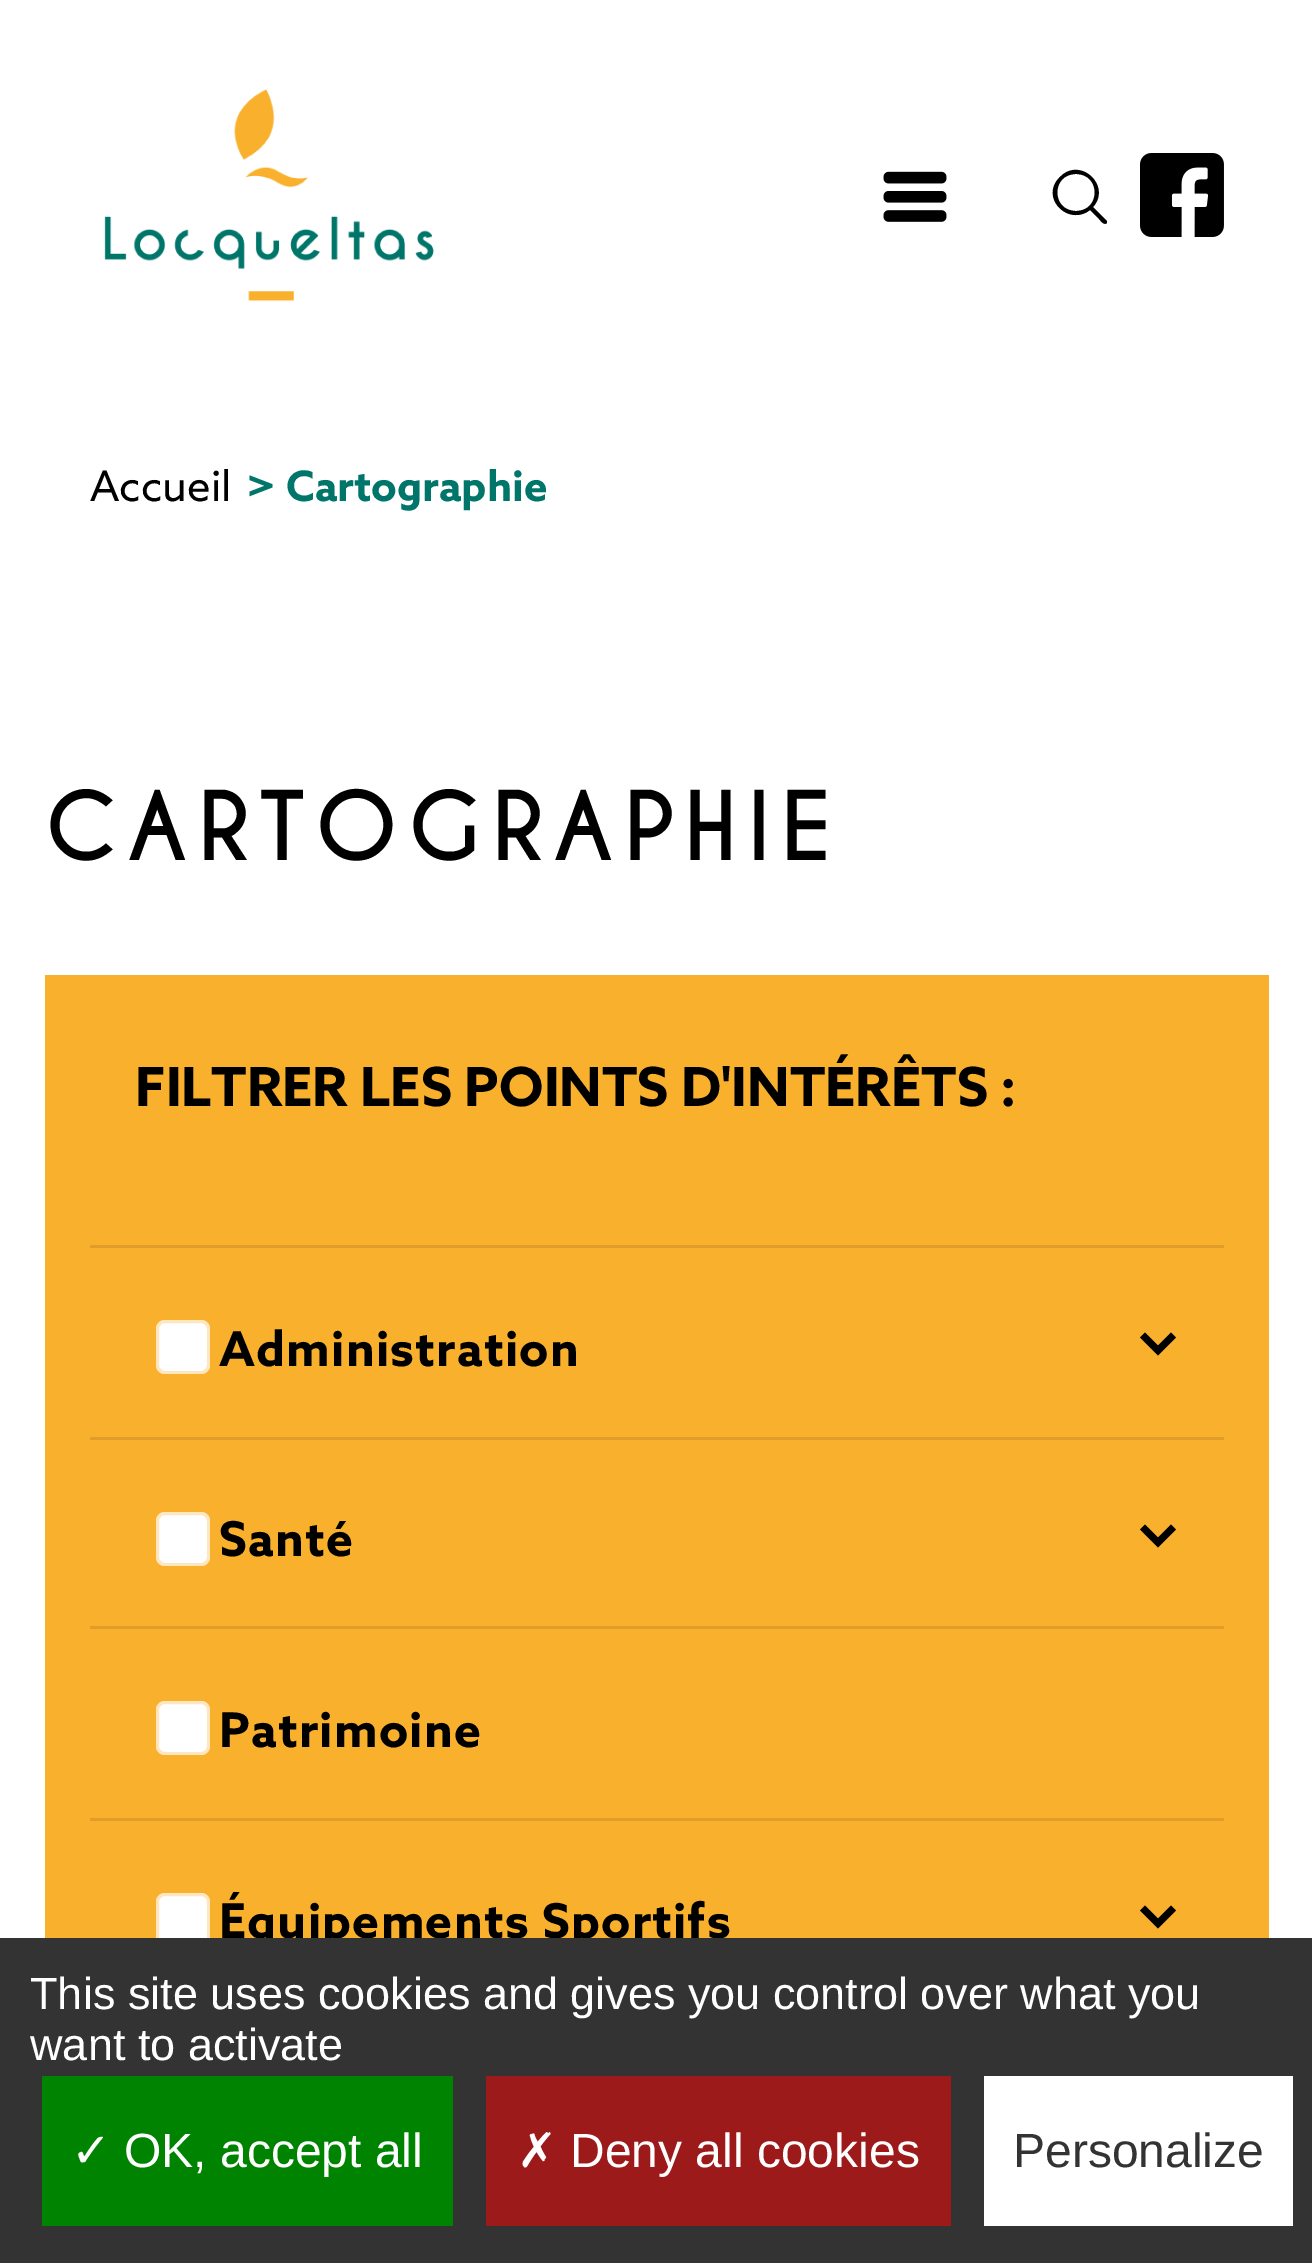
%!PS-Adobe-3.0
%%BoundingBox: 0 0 1312 2263
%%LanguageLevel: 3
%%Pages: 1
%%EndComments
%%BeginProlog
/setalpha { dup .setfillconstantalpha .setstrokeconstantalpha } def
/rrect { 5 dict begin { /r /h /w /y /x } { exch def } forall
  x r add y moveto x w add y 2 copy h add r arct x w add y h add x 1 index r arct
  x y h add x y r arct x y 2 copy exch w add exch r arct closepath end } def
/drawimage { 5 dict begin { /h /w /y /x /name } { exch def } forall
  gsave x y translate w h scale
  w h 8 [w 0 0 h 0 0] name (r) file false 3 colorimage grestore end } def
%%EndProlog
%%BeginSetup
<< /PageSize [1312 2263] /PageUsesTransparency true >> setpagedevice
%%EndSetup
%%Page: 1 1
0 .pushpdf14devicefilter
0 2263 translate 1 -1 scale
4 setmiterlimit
1 setgray
0 0 1312 2263 rectfill
(images/1.raw) 104 89 330 213 drawimage
(images/2.raw) 883 171 64 51 drawimage
0 setgray
newpath 1107 221 moveto 1093 207 lineto 1112 186 1080 156 1060 177 curveto 1039 197 1068 227 1090 210 curveto 1099 219 lineto 1100 220 1104 226 1107 223 curveto 1107 223 1107 222 1107 221 curveto closepath 1076 211 moveto 1051 211 1051 174 1076 174 curveto 1101 174 1101 211 1076 211 curveto closepath fill
(images/3.raw) 1140 153 84 84 drawimage
0.976 0.69 0.176 setrgbcolor
45 975 1224 963 rectfill
0.878 0.62 0.161 setrgbcolor
90 1245 1134 3 rectfill
1 setgray
156 1320 54 54 9 rrect fill
0.3 setalpha
0.976 0.69 0.176 setrgbcolor
3 setlinewidth
157.5 1321.5 51 51 7.5 rrect stroke
1 setalpha
0 setgray
newpath 1140 1337.5 moveto 1158 1355.5 lineto 1176 1337.5 lineto 1171 1332.5 lineto 1158 1345.5 lineto 1145 1332.5 lineto closepath fill
0.878 0.62 0.161 setrgbcolor
90 1437 1134 3 rectfill
1 setgray
156 1512 54 54 9 rrect fill
0.3 setalpha
0.976 0.69 0.176 setrgbcolor
157.5 1513.5 51 51 7.5 rrect stroke
1 setalpha
0 setgray
newpath 1140 1529.5 moveto 1158 1547.5 lineto 1176 1529.5 lineto 1171 1524.5 lineto 1158 1537.5 lineto 1145 1524.5 lineto closepath fill
0.878 0.62 0.161 setrgbcolor
90 1626 1134 3 rectfill
1 setgray
156 1701 54 54 9 rrect fill
0.3 setalpha
0.976 0.69 0.176 setrgbcolor
157.5 1702.5 51 51 7.5 rrect stroke
1 setalpha
0.878 0.62 0.161 setrgbcolor
90 1818 1134 3 rectfill
1 setgray
156 1893 54 54 9 rrect fill
0.3 setalpha
0.976 0.69 0.176 setrgbcolor
157.5 1894.5 51 51 7.5 rrect stroke
1 setalpha
0 setgray
newpath 1140 1910.5 moveto 1158 1928.5 lineto 1176 1910.5 lineto 1171 1905.5 lineto 1158 1918.5 lineto 1145 1905.5 lineto closepath fill
/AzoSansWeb-Regular [42 0 0 -42 0 0] selectfont
90 501 moveto (Accueil) show
/AzoSansWeb-Bold [42 0 0 -42 0 0] selectfont
0 0.459 0.412 setrgbcolor
246 501 moveto (> Cartographie) show
/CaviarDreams-Bold [90 0 0 -90 0 0] selectfont
0 setgray
45 860 moveto 10 0 (CARTOGRAPHIE) ashow
/AzoSansWeb-Bold [54 0 0 -54 0 0] selectfont
135 1106 moveto (FILTRER LES POINTS D'INTÉRÊTS :) show
/AzoSansWeb-Bold [48 0 0 -48 0 0] selectfont
219 1366 moveto 1.2 0 (Administration) ashow
219 1556 moveto 1.2 0 (Santé) ashow
219 1747 moveto 1.2 0 (Patrimoine) ashow
219 1938 moveto 1.2 0 (Équipements Sportifs) ashow
0.2 setgray
0 1938 1312 325 rectfill
/LiberationSans-Regular [45 0 0 -45 0 0] selectfont
1 setgray
30 2009 moveto (This site uses cookies and gives you control over what you) show
30 2060 moveto (want to activate) show
0 0.514 0 setrgbcolor
42 2076 411 150 rectfill
/DejaVuSans-Regular [48 0 0 -48 0 0] selectfont
1 setgray
71 2167 moveto (✓) show
/LiberationSans-Regular [48 0 0 -48 0 0] selectfont
124 2167 moveto (OK, accept all) show
0.612 0.102 0.102 setrgbcolor
486 2076 465 150 rectfill
/DejaVuSans-Regular [48 0 0 -48 0 0] selectfont
1 setgray
517 2167 moveto (✗) show
/LiberationSans-Regular [48 0 0 -48 0 0] selectfont
570 2167 moveto (Deny all cookies) show
984 2076 309 150 rectfill
0.2 setgray
1013 2167 moveto (Personalize) show
.poppdf14devicefilter showpage
%%EOF
